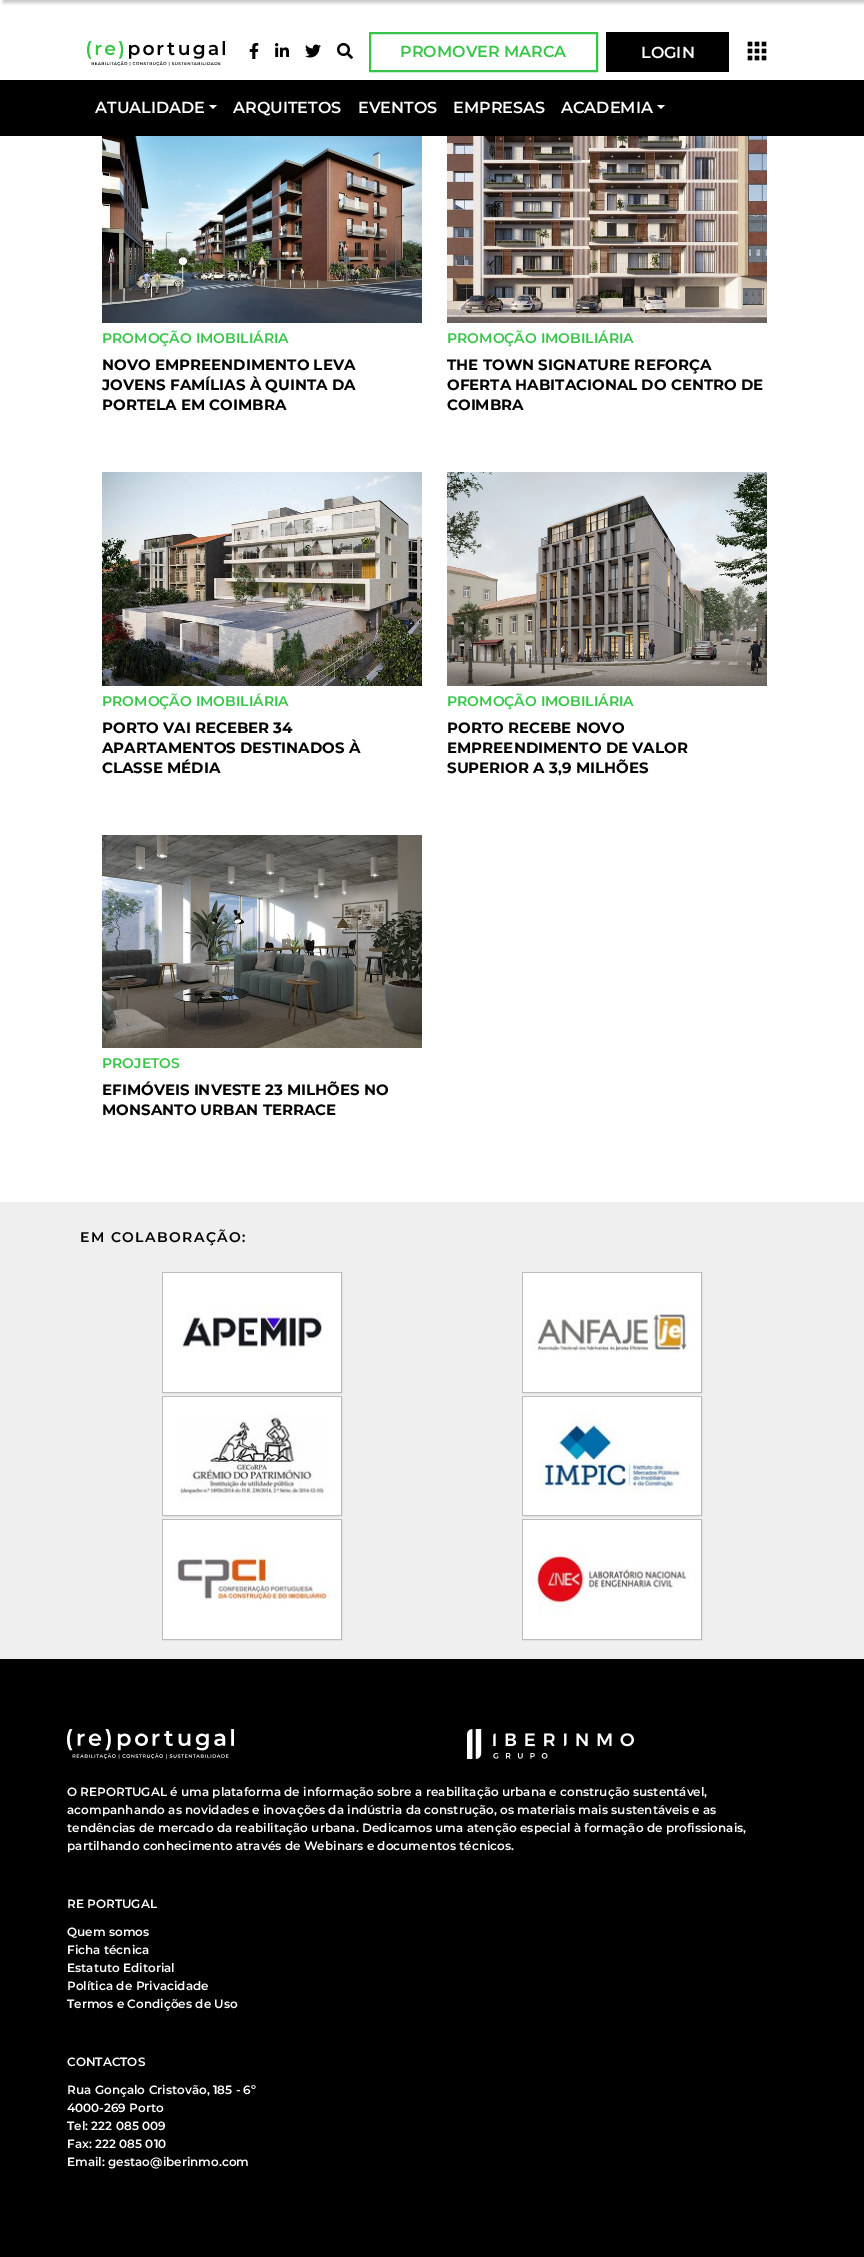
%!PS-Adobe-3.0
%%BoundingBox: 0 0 864 2257
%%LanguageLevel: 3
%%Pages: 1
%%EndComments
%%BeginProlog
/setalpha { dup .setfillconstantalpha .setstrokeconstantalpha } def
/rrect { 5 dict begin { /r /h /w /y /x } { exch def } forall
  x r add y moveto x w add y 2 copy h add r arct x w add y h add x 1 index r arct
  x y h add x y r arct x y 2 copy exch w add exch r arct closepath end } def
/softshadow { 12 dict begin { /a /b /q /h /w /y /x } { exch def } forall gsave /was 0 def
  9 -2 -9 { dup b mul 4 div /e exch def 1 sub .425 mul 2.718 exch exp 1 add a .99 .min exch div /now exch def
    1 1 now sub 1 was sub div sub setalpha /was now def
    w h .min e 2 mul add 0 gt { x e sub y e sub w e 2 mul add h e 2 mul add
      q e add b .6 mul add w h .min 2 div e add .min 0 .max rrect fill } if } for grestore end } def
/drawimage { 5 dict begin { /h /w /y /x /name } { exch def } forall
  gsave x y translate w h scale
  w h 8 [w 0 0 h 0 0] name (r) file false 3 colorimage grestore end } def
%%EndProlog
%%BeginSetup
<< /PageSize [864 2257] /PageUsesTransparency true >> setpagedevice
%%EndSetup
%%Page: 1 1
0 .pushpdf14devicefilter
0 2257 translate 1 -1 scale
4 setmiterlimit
1 setgray
0 0 864 2257 rectfill
0 setgray
3 -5 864 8 0 1.5 0.2 softshadow
(images/1.raw) 87 41 138 25 drawimage
(images/2.raw) 249 43 10 16 drawimage
(images/3.raw) 275 43 14 14 drawimage
(images/4.raw) 305 44 16 14 drawimage
(images/5.raw) 337 43 16 16 drawimage
0.216 0.769 0.282 setrgbcolor
2 setlinewidth
370 33 227 38 rectstroke
0 setgray
606 32 123 40 rectfill
(images/6.raw) 747 41 20 20 drawimage
0 80 864 56 rectfill
1 setgray
newpath 209 105 moveto 217 105 lineto 213 109 lineto closepath fill
newpath 657 105 moveto 665 105 lineto 661 109 lineto closepath fill
(images/7.raw) 102 136 320 187 drawimage
(images/8.raw) 447 136 320 187 drawimage
(images/9.raw) 102 472 320 214 drawimage
(images/10.raw) 447 472 320 214 drawimage
(images/11.raw) 102 835 320 213 drawimage
0.937 setgray
0 1202 864 457 rectfill
0.737 setgray
1 setlinewidth
162.5 1272.5 179 120 rectstroke
(images/12.raw) 163 1273 178 119 drawimage
522.5 1272.5 179 120 rectstroke
(images/13.raw) 523 1273 178 119 drawimage
162.5 1396.5 179 119 rectstroke
(images/14.raw) 163 1397 178 118 drawimage
522.5 1396.5 179 119 rectstroke
(images/15.raw) 523 1397 178 118 drawimage
162.5 1519.5 179 120 rectstroke
(images/16.raw) 163 1520 178 119 drawimage
522.5 1519.5 179 120 rectstroke
(images/17.raw) 523 1520 178 119 drawimage
0 setgray
0 1659 864 598 rectfill
(images/18.raw) 67 1729 167 30 drawimage
(images/19.raw) 467 1729 167 30 drawimage
/Montserrat-SemiBold [16 0 0 -16 0 0] selectfont
0.216 0.769 0.282 setrgbcolor
400 57 moveto (PROMOVER MARCA) show
1 setgray
641 58 moveto (LOGIN) show
95 113 moveto (ATUALIDADE) show
233 113 moveto (ARQUITETOS) show
358 113 moveto (EVENTOS) show
453 113 moveto (EMPRESAS) show
561 113 moveto (ACADEMIA) show
/Montserrat-SemiBold [14 0 0 -14 0 0] selectfont
0.216 0.769 0.282 setrgbcolor
102 343 moveto (PROMOÇÃO IMOBILIÁRIA) show
/Montserrat-Bold [15 0 0 -15 0 0] selectfont
0 setgray
102 370 moveto (NOVO EMPREENDIMENTO LEVA) show
102 390 moveto (JOVENS FAMÍLIAS À QUINTA DA) show
102 410 moveto (PORTELA EM COIMBRA) show
/Montserrat-SemiBold [14 0 0 -14 0 0] selectfont
0.216 0.769 0.282 setrgbcolor
447 343 moveto (PROMOÇÃO IMOBILIÁRIA) show
/Montserrat-Bold [15 0 0 -15 0 0] selectfont
0 setgray
447 370 moveto (THE TOWN SIGNATURE REFORÇA) show
447 390 moveto (OFERTA HABITACIONAL DO CENTRO DE) show
447 410 moveto (COIMBRA) show
/Montserrat-SemiBold [14 0 0 -14 0 0] selectfont
0.216 0.769 0.282 setrgbcolor
102 706 moveto (PROMOÇÃO IMOBILIÁRIA) show
/Montserrat-Bold [15 0 0 -15 0 0] selectfont
0 setgray
102 733 moveto (PORTO VAI RECEBER 34) show
102 753 moveto (APARTAMENTOS DESTINADOS À) show
102 773 moveto (CLASSE MÉDIA) show
/Montserrat-SemiBold [14 0 0 -14 0 0] selectfont
0.216 0.769 0.282 setrgbcolor
447 706 moveto (PROMOÇÃO IMOBILIÁRIA) show
/Montserrat-Bold [15 0 0 -15 0 0] selectfont
0 setgray
447 733 moveto (PORTO RECEBE NOVO) show
447 753 moveto (EMPREENDIMENTO DE VALOR) show
447 773 moveto (SUPERIOR A 3,9 MILHÕES) show
/Montserrat-SemiBold [14 0 0 -14 0 0] selectfont
0.216 0.769 0.282 setrgbcolor
102 1068 moveto (PROJETOS) show
/Montserrat-Bold [15 0 0 -15 0 0] selectfont
0 setgray
102 1095 moveto (EFIMÓVEIS INVESTE 23 MILHÕES NO) show
102 1115 moveto (MONSANTO URBAN TERRACE) show
/Montserrat-SemiBold [14 0 0 -14 0 0] selectfont
80 1242 moveto 1.4 0 (EM COLABORAÇÃO:) ashow
/Montserrat-SemiBold [12 0 0 -12 0 0] selectfont
1 setgray
67 1796 moveto (O REPORTUGAL é uma plataforma de informação sobre a reabilitação urbana e construção sustentável,) show
67 1814 moveto (acompanhando as novidades e inovações da indústria da construção, os materiais mais sustentáveis e as) show
67 1832 moveto (tendências de mercado da reabilitação urbana. Dedicamos uma atenção especial à formação de profissionais,) show
67 1850 moveto (partilhando conhecimento através de Webinars e documentos técnicos.) show
67 1908 moveto (RE PORTUGAL) show
67 1936 moveto (Quem somos) show
67 1954 moveto (Ficha técnica) show
67 1972 moveto (Estatuto Editorial) show
67 1990 moveto (Política de Privacidade) show
67 2008 moveto (Termos e Condições de Uso) show
67 2066 moveto (CONTACTOS) show
67 2094 moveto (Rua Gonçalo Cristovão, 185 - 6º) show
67 2112 moveto (4000-269 Porto) show
67 2130 moveto (Tel: 222 085 009) show
67 2148 moveto (Fax: 222 085 010) show
67 2166 moveto (Email: gestao@iberinmo.com) show
.poppdf14devicefilter showpage
%%EOF
